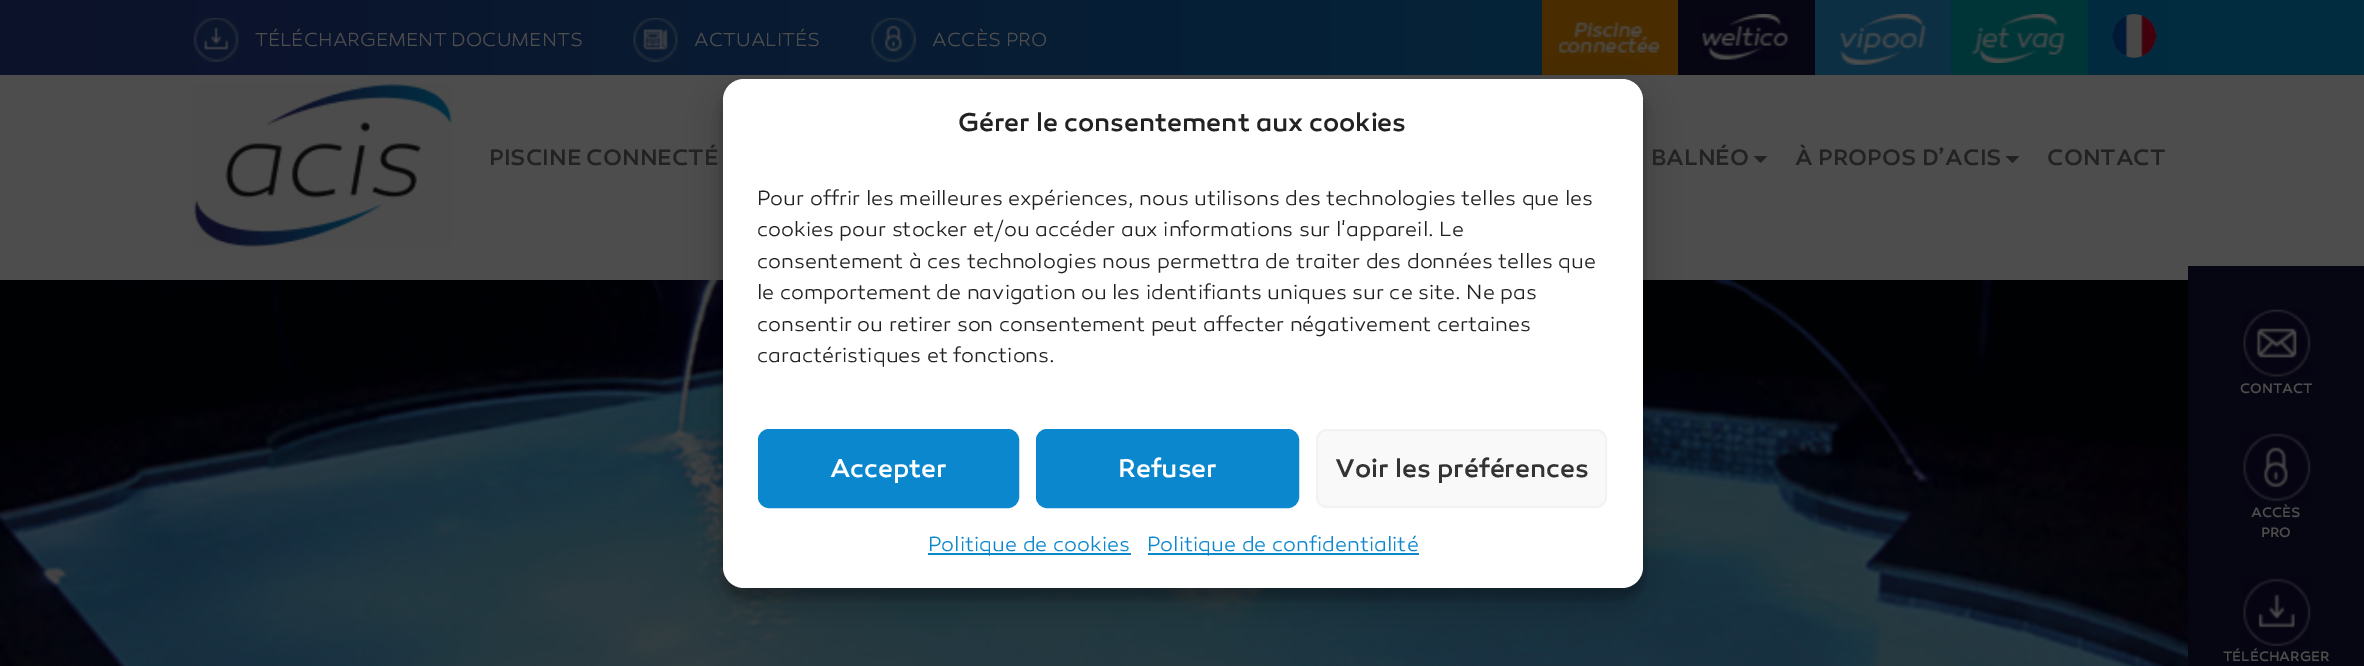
%!PS-Adobe-3.0
%%BoundingBox: 0 0 2364 666
%%LanguageLevel: 3
%%Pages: 1
%%EndComments
%%BeginProlog
/setalpha { dup .setfillconstantalpha .setstrokeconstantalpha } def
/rrect { 5 dict begin { /r /h /w /y /x } { exch def } forall
  x r add y moveto x w add y 2 copy h add r arct x w add y h add x 1 index r arct
  x y h add x y r arct x y 2 copy exch w add exch r arct closepath end } def
/softshadow { 12 dict begin { /a /b /q /h /w /y /x } { exch def } forall gsave /was 0 def
  9 -2 -9 { dup b mul 4 div /e exch def 1 sub .425 mul 2.718 exch exp 1 add a .99 .min exch div /now exch def
    1 1 now sub 1 was sub div sub setalpha /was now def
    w h .min e 2 mul add 0 gt { x e sub y e sub w e 2 mul add h e 2 mul add
      q e add b .6 mul add w h .min 2 div e add .min 0 .max rrect fill } if } for grestore end } def
/drawimage { 5 dict begin { /h /w /y /x /name } { exch def } forall
  gsave x y translate w h scale
  w h 8 [w 0 0 h 0 0] name (r) file false 3 colorimage grestore end } def
%%EndProlog
%%BeginSetup
<< /PageSize [2364 666] /PageUsesTransparency true >> setpagedevice
%%EndSetup
%%Page: 1 1
0 .pushpdf14devicefilter
0 666 translate 1 -1 scale
4 setmiterlimit
0.302 setgray
0 0 2364 666 rectfill
gsave newpath 0 0 moveto 2364 0 lineto 2364 75 lineto 0 75 lineto closepath clip newpath
<< /ShadingType 2 /ColorSpace /DeviceRGB /Coords [0 38 2364 38] /Extend [true true] /Function << /FunctionType 2 /Domain [0 1] /C0 [0.047 0.071 0.165] /C1 [0.004 0.176 0.255] /N 1 >> >> shfill grestore
(images/1.raw) 193 18 46 44 drawimage
(images/2.raw) 633 18 45 44 drawimage
(images/3.raw) 871 18 45 44 drawimage
0.286 0.173 0 setrgbcolor
1542 0 136 75 rectfill
(images/4.raw) 1558 22 102 33 drawimage
0.024 0.02 0.071 setrgbcolor
1678 0 137 75 rectfill
(images/5.raw) 1702 14 87 46 drawimage
0.051 0.184 0.263 setrgbcolor
1815 0 136 75 rectfill
(images/6.raw) 1840 14 86 51 drawimage
0 0.208 0.22 setrgbcolor
1951 0 137 75 rectfill
(images/7.raw) 1971 14 95 49 drawimage
(images/8.raw) 2111 14 46 44 drawimage
(images/9.raw) 193 84 259 163 drawimage
0.133 setgray
newpath 1753.5 156 moveto 1767.5 156 lineto 1760.5 163 lineto closepath fill
newpath 2005.5 156 moveto 2019.5 156 lineto 2012.5 163 lineto closepath fill
(images/10.raw) 0 280 2188 386 drawimage
0 setgray
723 89 920 510 21 5 0.23 softshadow
723 96 920 510 21 17.5 0.19 softshadow
1 setgray
723 79 920 509 21 rrect fill
0.043 0.529 0.804 setrgbcolor
759 430 259 77 10 rrect gsave fill grestore
2 setlinewidth
stroke
1037 430 261 77 10 rrect gsave fill grestore
stroke
0.976 setgray
1317 430 289 77 10 rrect gsave fill grestore
0.949 setgray
stroke
0.043 0.529 0.804 setrgbcolor
928 553 203 2 rectfill
1148 553 271 2 rectfill
0.024 0.02 0.071 setrgbcolor
2188 266 176 400 rectfill
(images/11.raw) 2242 309 69 68 drawimage
(images/12.raw) 2242 433 69 68 drawimage
(images/13.raw) 2242 578 69 68 drawimage
/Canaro-Light [19.25 0 0 -19.25 0 0] selectfont
0.302 setgray
255 46 moveto (TÉLÉCHARGEMENT DOCUMENTS) show
694 46 moveto (ACTUALITÉS) show
932 46 moveto (ACCÈS PRO) show
/Canaro-Medium [22.75 0 0 -22.75 0 0] selectfont
0.133 setgray
489 165 moveto (PISCINE CONNECTÉ) show
1651 165 moveto (BALNÉO) show
1795 165 moveto (À PROPOS D’ACIS) show
2047 165 moveto (CONTACT) show
/Canaro-Medium [26.25 0 0 -26.25 0 0] selectfont
958 131 moveto (Gérer le consentement aux cookies) show
/Canaro-Light [21 0 0 -21 0 0] selectfont
757 205 moveto (Pour offrir les meilleures expériences, nous utilisons des technologies telles que les) show
757 236 moveto (cookies pour stocker et/ou accéder aux informations sur l'appareil. Le) show
757 268 moveto (consentement à ces technologies nous permettra de traiter des données telles que) show
757 299 moveto (le comportement de navigation ou les identifiants uniques sur ce site. Ne pas) show
757 331 moveto (consentir ou retirer son consentement peut affecter négativement certaines) show
757 362 moveto (caractéristiques et fonctions.) show
/Canaro-Medium [26.25 0 0 -26.25 0 0] selectfont
1 setgray
830 477 moveto (Accepter) show
1118 477 moveto (Refuser) show
0.2 setgray
1335 477 moveto (Voir les préférences) show
/Canaro-Light [21 0 0 -21 0 0] selectfont
0.043 0.529 0.804 setrgbcolor
928 551 moveto (Politique de cookies) show
1147 551 moveto (Politique de confidentialité) show
/Canaro-Medium [14 0 0 -14 0 0] selectfont
0.302 setgray
2240 393 moveto (CONTACT) show
2251 517 moveto (ACCÈS) show
2261 537 moveto (PRO) show
2223 661 moveto (TÉLÉCHARGER) show
.poppdf14devicefilter showpage
%%EOF
